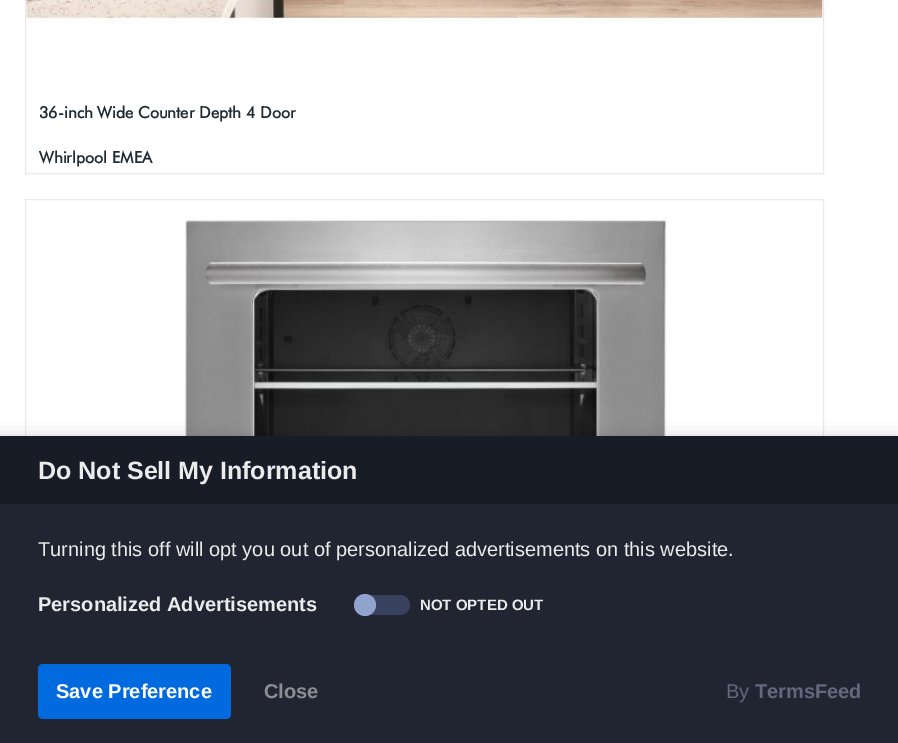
%!PS-Adobe-3.0
%%BoundingBox: 0 0 898 743
%%LanguageLevel: 3
%%Pages: 1
%%EndComments
%%BeginProlog
/setalpha { dup .setfillconstantalpha .setstrokeconstantalpha } def
/rrect { 5 dict begin { /r /h /w /y /x } { exch def } forall
  x r add y moveto x w add y 2 copy h add r arct x w add y h add x 1 index r arct
  x y h add x y r arct x y 2 copy exch w add exch r arct closepath end } def
/softshadow { 12 dict begin { /a /b /q /h /w /y /x } { exch def } forall gsave /was 0 def
  9 -2 -9 { dup b mul 4 div /e exch def 1 sub .425 mul 2.718 exch exp 1 add a .99 .min exch div /now exch def
    1 1 now sub 1 was sub div sub setalpha /was now def
    w h .min e 2 mul add 0 gt { x e sub y e sub w e 2 mul add h e 2 mul add
      q e add b .6 mul add w h .min 2 div e add .min 0 .max rrect fill } if } for grestore end } def
/drawimage { 5 dict begin { /h /w /y /x /name } { exch def } forall
  gsave x y translate w h scale
  w h 8 [w 0 0 h 0 0] name (r) file false 3 colorimage grestore end } def
%%EndProlog
%%BeginSetup
<< /PageSize [898 743] /PageUsesTransparency true >> setpagedevice
%%EndSetup
%%Page: 1 1
0 .pushpdf14devicefilter
0 743 translate 1 -1 scale
4 setmiterlimit
1 setgray
0 0 898 743 rectfill
0.914 setgray
25.5 -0.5 798 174 rectstroke
(images/1.raw) 26 0 797 24 drawimage
25.5 199.5 798 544 rectstroke
(images/2.raw) 184 216 483 220 drawimage
0 setgray
0 436 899 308 0 7.5 0.16 softshadow
0.129 0.145 0.192 setrgbcolor
0 504 898 239 rectfill
0.094 0.11 0.153 setrgbcolor
0 436 898 68 rectfill
0.22 0.259 0.369 setrgbcolor
354 595 56 20 10 rrect fill
0.561 0.639 0.8 setrgbcolor
newpath 365 605 11 0 360 arc closepath fill
0 0.416 0.871 setrgbcolor
38 664 193 55 5 rrect fill
/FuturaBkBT-Bold [16 0 0 -16 0 0] selectfont
0.122 0.169 0.204 setrgbcolor
39 118 moveto (36-inch Wide Counter Depth 4 Door) show
39 163 moveto (Whirlpool EMEA) show
/LiberationSans-Bold [25 0 0 -25 0 0] selectfont
0.922 0.922 0.925 setrgbcolor
38 479 moveto (Do Not Sell My Information) show
/LiberationSans-Regular [20 0 0 -20 0 0] selectfont
38 556 moveto (Turning this off will opt you out of personalized advertisements on this website.) show
/LiberationSans-Bold [20 0 0 -20 0 0] selectfont
38 611 moveto (Personalized Advertisements) show
/LiberationSans-Bold [15 0 0 -15 0 0] selectfont
420 610 moveto (NOT OPTED OUT) show
/LiberationSans-Bold [20 0 0 -20 0 0] selectfont
1 setgray
56 698 moveto (Save Preference) show
0.549 0.557 0.576 setrgbcolor
264 698 moveto (Close) show
/LiberationSans-Regular [20 0 0 -20 0 0] selectfont
0.38 0.412 0.494 setrgbcolor
726 698 moveto (By) show
/LiberationSans-Bold [20 0 0 -20 0 0] selectfont
755 698 moveto (TermsFeed) show
.poppdf14devicefilter showpage
%%EOF
